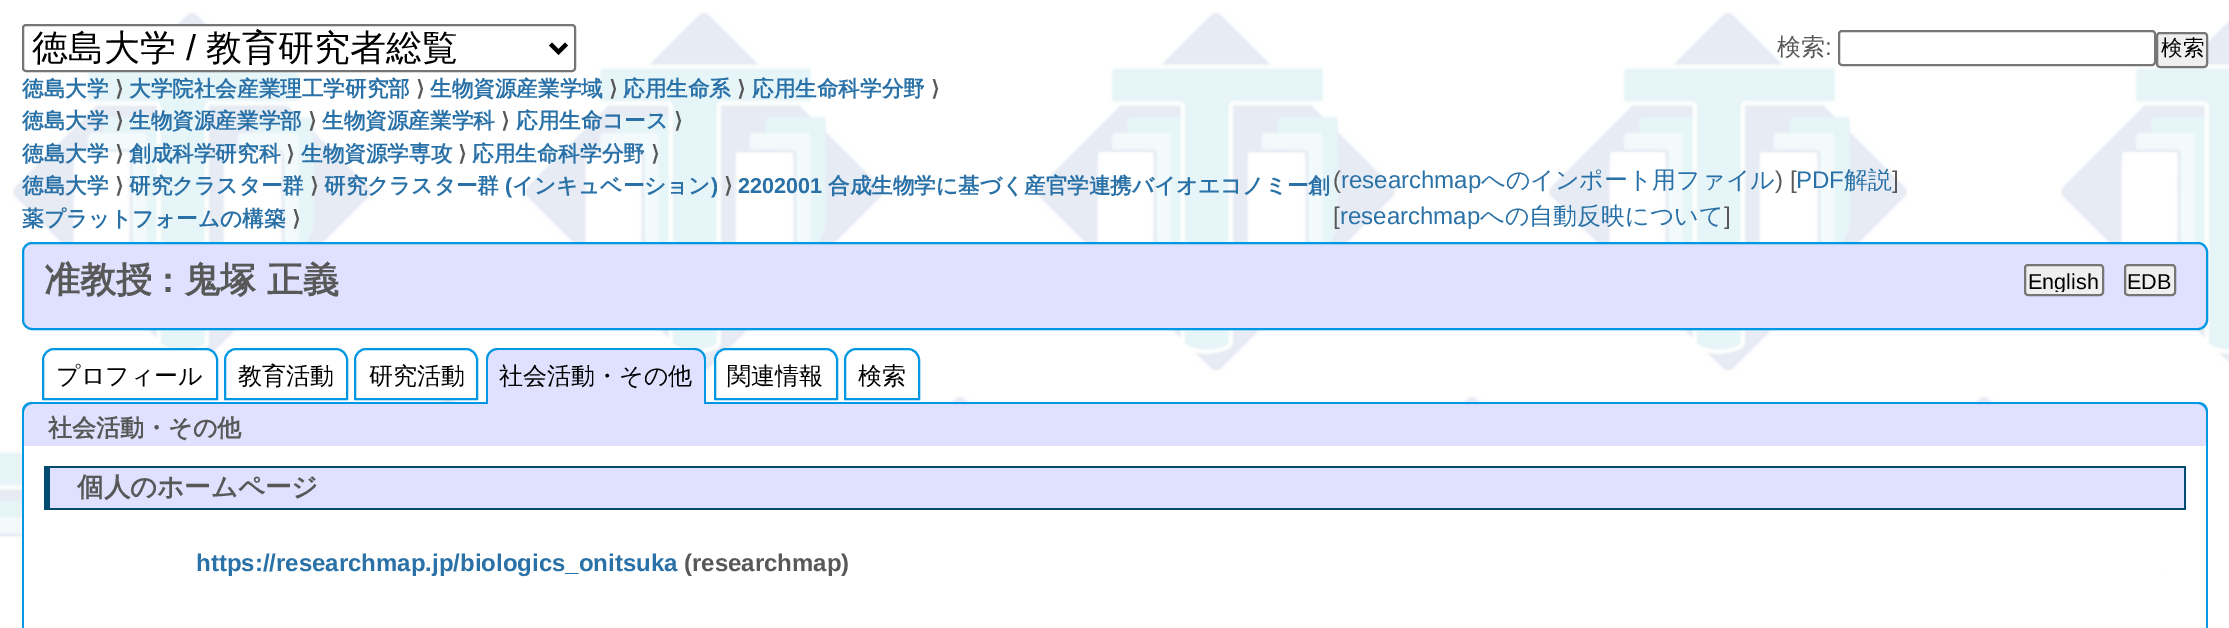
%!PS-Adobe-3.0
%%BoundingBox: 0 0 2229 628
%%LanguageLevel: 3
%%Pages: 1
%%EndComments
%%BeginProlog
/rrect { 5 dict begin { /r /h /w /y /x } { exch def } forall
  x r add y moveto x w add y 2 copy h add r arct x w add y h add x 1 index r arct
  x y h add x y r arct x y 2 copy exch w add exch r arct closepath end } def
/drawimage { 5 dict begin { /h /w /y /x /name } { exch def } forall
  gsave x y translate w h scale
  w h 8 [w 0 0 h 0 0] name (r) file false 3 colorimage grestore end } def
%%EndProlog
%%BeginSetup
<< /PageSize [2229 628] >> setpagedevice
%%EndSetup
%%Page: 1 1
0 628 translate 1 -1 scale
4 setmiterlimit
1 setgray
0 0 2229 628 rectfill
(images/1.raw) 0 0 2229 628 drawimage
23 25 552 46 3 rrect gsave fill grestore
0.463 setgray
2 setlinewidth
stroke
0 setgray
4 setlinewidth
newpath 550.5 44 moveto 558.5 52 lineto 566.5 44 lineto stroke
0.463 setgray
2 setlinewidth
1839 31 316 34 3 rrect stroke
0.937 setgray
2157 33 50 34 3 rrect gsave fill grestore
0.463 setgray
stroke
0.878 0.878 1 setrgbcolor
23 243 2184 86 9 rrect gsave fill grestore
0 0.596 0.886 setrgbcolor
stroke
0.937 setgray
2025 265 78 30 3 rrect gsave fill grestore
0.463 setgray
stroke
0.937 setgray
2125 265 50 30 3 rrect gsave fill grestore
0.463 setgray
stroke
1 setgray
newpath 54 349 moveto 206 349 lineto 212 349 217 354 217 360 curveto 217 399 lineto 43 399 lineto 43 360 lineto 43 354 48 349 54 349 curveto closepath gsave fill grestore
0 0.596 0.886 setrgbcolor
stroke
newpath 236 349 moveto 336 349 lineto 342 349 347 354 347 360 curveto 347 399 lineto 225 399 lineto 225 360 lineto 225 354 230 349 236 349 curveto closepath stroke
1 setgray
newpath 366 349 moveto 466 349 lineto 472 349 477 354 477 360 curveto 477 399 lineto 355 399 lineto 355 360 lineto 355 354 360 349 366 349 curveto closepath gsave fill grestore
0 0.596 0.886 setrgbcolor
stroke
0.878 0.878 1 setrgbcolor
newpath 32 404 moveto 2198 404 lineto 2202.5 404 2206 407.5 2206 412 curveto 2206 446 lineto 24 446 lineto 24 412 lineto 24 407.5 27.5 404 32 404 curveto closepath fill
0 0.596 0.886 setrgbcolor
newpath 32 402 moveto 2198 402 lineto 2204 402 2208 406 2208 412 curveto 2208 446 lineto 22 446 lineto 22 412 lineto 22 406 26 402 32 402 curveto closepath 32 404 moveto 2198 404 lineto 2202 404 2206 408 2206 412 curveto 2206 446 lineto 24 446 lineto 24 412 lineto 24 408 28 404 32 404 curveto closepath eofill
0.878 0.878 1 setrgbcolor
newpath 498 348 moveto 694 348 lineto 700.5 348 706 353.5 706 360 curveto 706 404 lineto 486 404 lineto 486 360 lineto 486 353.5 491.5 348 498 348 curveto closepath fill
0 0.596 0.886 setrgbcolor
newpath 498 348 moveto 694 348 lineto 701 348 706 353 706 360 curveto 706 404 lineto 486 404 lineto 486 360 lineto 486 353 491 348 498 348 curveto closepath 498 350 moveto 694 350 lineto 700 350 704 354 704 360 curveto 704 404 lineto 488 404 lineto 488 360 lineto 488 354 492 350 498 350 curveto closepath eofill
1 setgray
newpath 726 349 moveto 826 349 lineto 832 349 837 354 837 360 curveto 837 399 lineto 715 399 lineto 715 360 lineto 715 354 720 349 726 349 curveto closepath gsave fill grestore
0 0.596 0.886 setrgbcolor
stroke
newpath 856 349 moveto 908 349 lineto 914 349 919 354 919 360 curveto 919 399 lineto 845 399 lineto 845 360 lineto 845 354 850 349 856 349 curveto closepath stroke
1 setgray
24 446 2142 182 rectfill
0 0.596 0.886 setrgbcolor
newpath 22 446 moveto 2208 446 lineto 2208 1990 lineto 2208 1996 2204 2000 2198 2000 curveto 32 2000 lineto 26 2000 22 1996 22 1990 curveto closepath 24 446 moveto 2206 446 lineto 2206 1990 lineto 2206 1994 2202 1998 2198 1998 curveto 32 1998 lineto 28 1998 24 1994 24 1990 curveto closepath eofill
0.878 0.878 1 setrgbcolor
50 468 2134 40 rectfill
0 0.298 0.443 setrgbcolor
44 466 2142 2 rectfill
2184 466 2 44 rectfill
44 508 2142 2 rectfill
44 466 6 44 rectfill
/WenQuanYiZenHei-Medium [36 0 0 -36 0 0] selectfont
0 setgray
32 60 moveto (徳島大学) show
/LiberationSans-Regular [36 0 0 -36 0 0] selectfont
186 60 moveto (/) show
/WenQuanYiZenHei-Medium [36 0 0 -36 0 0] selectfont
206 60 moveto (教育研究者総覧) show
/WenQuanYiZenHei-Medium [24 0 0 -24 0 0] selectfont
0.345 setgray
1777 55 moveto (検索) show
/LiberationSans-Regular [24 0 0 -24 0 0] selectfont
1825 55 moveto (:) show
/WenQuanYiZenHei-Medium [21.6 0 0 -21.6 0 0] selectfont
0 setgray
2161 55 moveto (検索) show
/WenQuanYiZenHei-Bold [21.6 0 0 -21.6 0 0] selectfont
0.161 0.443 0.655 setrgbcolor
22 96 moveto (徳島大学) show
/DejaVuSans-Bold [21.6 0 0 -21.6 0 0] selectfont
0.345 setgray
115 96 moveto (⟩) show
/WenQuanYiZenHei-Bold [21.6 0 0 -21.6 0 0] selectfont
0.161 0.443 0.655 setrgbcolor
129 96 moveto (大学院社会産業理工学研究部) show
/DejaVuSans-Bold [21.6 0 0 -21.6 0 0] selectfont
0.345 setgray
416 96 moveto (⟩) show
/WenQuanYiZenHei-Bold [21.6 0 0 -21.6 0 0] selectfont
0.161 0.443 0.655 setrgbcolor
430 96 moveto (生物資源産業学域) show
/DejaVuSans-Bold [21.6 0 0 -21.6 0 0] selectfont
0.345 setgray
609 96 moveto (⟩) show
/WenQuanYiZenHei-Bold [21.6 0 0 -21.6 0 0] selectfont
0.161 0.443 0.655 setrgbcolor
623 96 moveto (応用生命系) show
/DejaVuSans-Bold [21.6 0 0 -21.6 0 0] selectfont
0.345 setgray
737 96 moveto (⟩) show
/WenQuanYiZenHei-Bold [21.6 0 0 -21.6 0 0] selectfont
0.161 0.443 0.655 setrgbcolor
752 96 moveto (応用生命科学分野) show
/DejaVuSans-Bold [21.6 0 0 -21.6 0 0] selectfont
0.345 setgray
931 96 moveto (⟩) show
/WenQuanYiZenHei-Bold [21.6 0 0 -21.6 0 0] selectfont
0.161 0.443 0.655 setrgbcolor
22 128 moveto (徳島大学) show
/DejaVuSans-Bold [21.6 0 0 -21.6 0 0] selectfont
0.345 setgray
115 128 moveto (⟩) show
/WenQuanYiZenHei-Bold [21.6 0 0 -21.6 0 0] selectfont
0.161 0.443 0.655 setrgbcolor
129 128 moveto (生物資源産業学部) show
/DejaVuSans-Bold [21.6 0 0 -21.6 0 0] selectfont
0.345 setgray
308 128 moveto (⟩) show
/WenQuanYiZenHei-Bold [21.6 0 0 -21.6 0 0] selectfont
0.161 0.443 0.655 setrgbcolor
322 128 moveto (生物資源産業学科) show
/DejaVuSans-Bold [21.6 0 0 -21.6 0 0] selectfont
0.345 setgray
501 128 moveto (⟩) show
/WenQuanYiZenHei-Bold [21.6 0 0 -21.6 0 0] selectfont
0.161 0.443 0.655 setrgbcolor
516 128 moveto (応用生命コース) show
/DejaVuSans-Bold [21.6 0 0 -21.6 0 0] selectfont
0.345 setgray
674 128 moveto (⟩) show
/WenQuanYiZenHei-Bold [21.6 0 0 -21.6 0 0] selectfont
0.161 0.443 0.655 setrgbcolor
22 161 moveto (徳島大学) show
/DejaVuSans-Bold [21.6 0 0 -21.6 0 0] selectfont
0.345 setgray
115 161 moveto (⟩) show
/WenQuanYiZenHei-Bold [21.6 0 0 -21.6 0 0] selectfont
0.161 0.443 0.655 setrgbcolor
129 161 moveto (創成科学研究科) show
/DejaVuSans-Bold [21.6 0 0 -21.6 0 0] selectfont
0.345 setgray
286 161 moveto (⟩) show
/WenQuanYiZenHei-Bold [21.6 0 0 -21.6 0 0] selectfont
0.161 0.443 0.655 setrgbcolor
301 161 moveto (生物資源学専攻) show
/DejaVuSans-Bold [21.6 0 0 -21.6 0 0] selectfont
0.345 setgray
458 161 moveto (⟩) show
/WenQuanYiZenHei-Bold [21.6 0 0 -21.6 0 0] selectfont
0.161 0.443 0.655 setrgbcolor
472 161 moveto (応用生命科学分野) show
/DejaVuSans-Bold [21.6 0 0 -21.6 0 0] selectfont
0.345 setgray
651 161 moveto (⟩) show
/WenQuanYiZenHei-Bold [21.6 0 0 -21.6 0 0] selectfont
0.161 0.443 0.655 setrgbcolor
22 193 moveto (徳島大学) show
/DejaVuSans-Bold [21.6 0 0 -21.6 0 0] selectfont
0.345 setgray
115 193 moveto (⟩) show
/WenQuanYiZenHei-Bold [21.6 0 0 -21.6 0 0] selectfont
0.161 0.443 0.655 setrgbcolor
129 193 moveto (研究クラスター群) show
/DejaVuSans-Bold [21.6 0 0 -21.6 0 0] selectfont
0.345 setgray
310 193 moveto (⟩) show
/WenQuanYiZenHei-Bold [21.6 0 0 -21.6 0 0] selectfont
0.161 0.443 0.655 setrgbcolor
324 193 moveto (研究クラスター群) show
/LiberationSans-Bold [21.6 0 0 -21.6 0 0] selectfont
505 193 moveto (\() show
/WenQuanYiZenHei-Bold [21.6 0 0 -21.6 0 0] selectfont
512 193 moveto (インキュベーション) show
/LiberationSans-Bold [21.6 0 0 -21.6 0 0] selectfont
711 193 moveto (\)) show
/DejaVuSans-Bold [21.6 0 0 -21.6 0 0] selectfont
0.345 setgray
724 193 moveto (⟩) show
/LiberationSans-Bold [21.6 0 0 -21.6 0 0] selectfont
0.161 0.443 0.655 setrgbcolor
738 193 moveto (2202001) show
/WenQuanYiZenHei-Bold [21.6 0 0 -21.6 0 0] selectfont
828 193 moveto (合成生物学に基づく産官学連携バイオエコノミー創) show
22 226 moveto (薬プラットフォームの構築) show
/DejaVuSans-Bold [21.6 0 0 -21.6 0 0] selectfont
0.345 setgray
292 226 moveto (⟩) show
/LiberationSans-Regular [24 0 0 -24 0 0] selectfont
1333 188 moveto (\() show
0.161 0.443 0.655 setrgbcolor
1341 188 moveto (researchmap) show
/WenQuanYiZenHei-Medium [24 0 0 -24 0 0] selectfont
1481 188 moveto (へのインポート用ファイル) show
/LiberationSans-Regular [24 0 0 -24 0 0] selectfont
0.345 setgray
1775 188 moveto (\) [) show
0.161 0.443 0.655 setrgbcolor
1796 188 moveto (PDF) show
/WenQuanYiZenHei-Medium [24 0 0 -24 0 0] selectfont
1844 188 moveto (解説) show
/LiberationSans-Regular [24 0 0 -24 0 0] selectfont
0.345 setgray
1892 188 moveto (]) show
1333 224 moveto ([) show
0.161 0.443 0.655 setrgbcolor
1340 224 moveto (researchmap) show
/WenQuanYiZenHei-Medium [24 0 0 -24 0 0] selectfont
1480 224 moveto (への自動反映について) show
/LiberationSans-Regular [24 0 0 -24 0 0] selectfont
0.345 setgray
1724 224 moveto (]) show
/WenQuanYiZenHei-Bold [36 0 0 -36 0 0] selectfont
44 292 moveto (准教授) show
/LiberationSans-Bold [36 0 0 -36 0 0] selectfont
162 292 moveto (:) show
/WenQuanYiZenHei-Bold [36 0 0 -36 0 0] selectfont
184 292 moveto (鬼塚 正義) show
gsave
2028 268 72 24 rectclip
/LiberationSans-Regular [21.6 0 0 -21.6 0 0] selectfont
0 setgray
2028 289 moveto (English) show
grestore
/LiberationSans-Regular [21.6 0 0 -21.6 0 0] selectfont
0 setgray
2127 289 moveto (EDB) show
/WenQuanYiZenHei-Medium [24 0 0 -24 0 0] selectfont
56 384 moveto (プロフィール) show
238 384 moveto (教育活動) show
369 384 moveto (研究活動) show
499 384 moveto (社会活動・その他) show
727 384 moveto (関連情報) show
858 384 moveto (検索) show
/WenQuanYiZenHei-Bold [24 0 0 -24 0 0] selectfont
0.345 setgray
48 436 moveto (社会活動・その他) show
/WenQuanYiZenHei-Bold [26.5 0 0 -26.5 0 0] selectfont
77 496 moveto (個人のホームページ) show
/LiberationSans-Bold [24 0 0 -24 0 0] selectfont
0.161 0.443 0.655 setrgbcolor
196 571 moveto (https://researchmap.jp/biologics_onitsuka) show
0.345 setgray
684 571 moveto (\(researchmap\)) show
showpage
%%EOF
